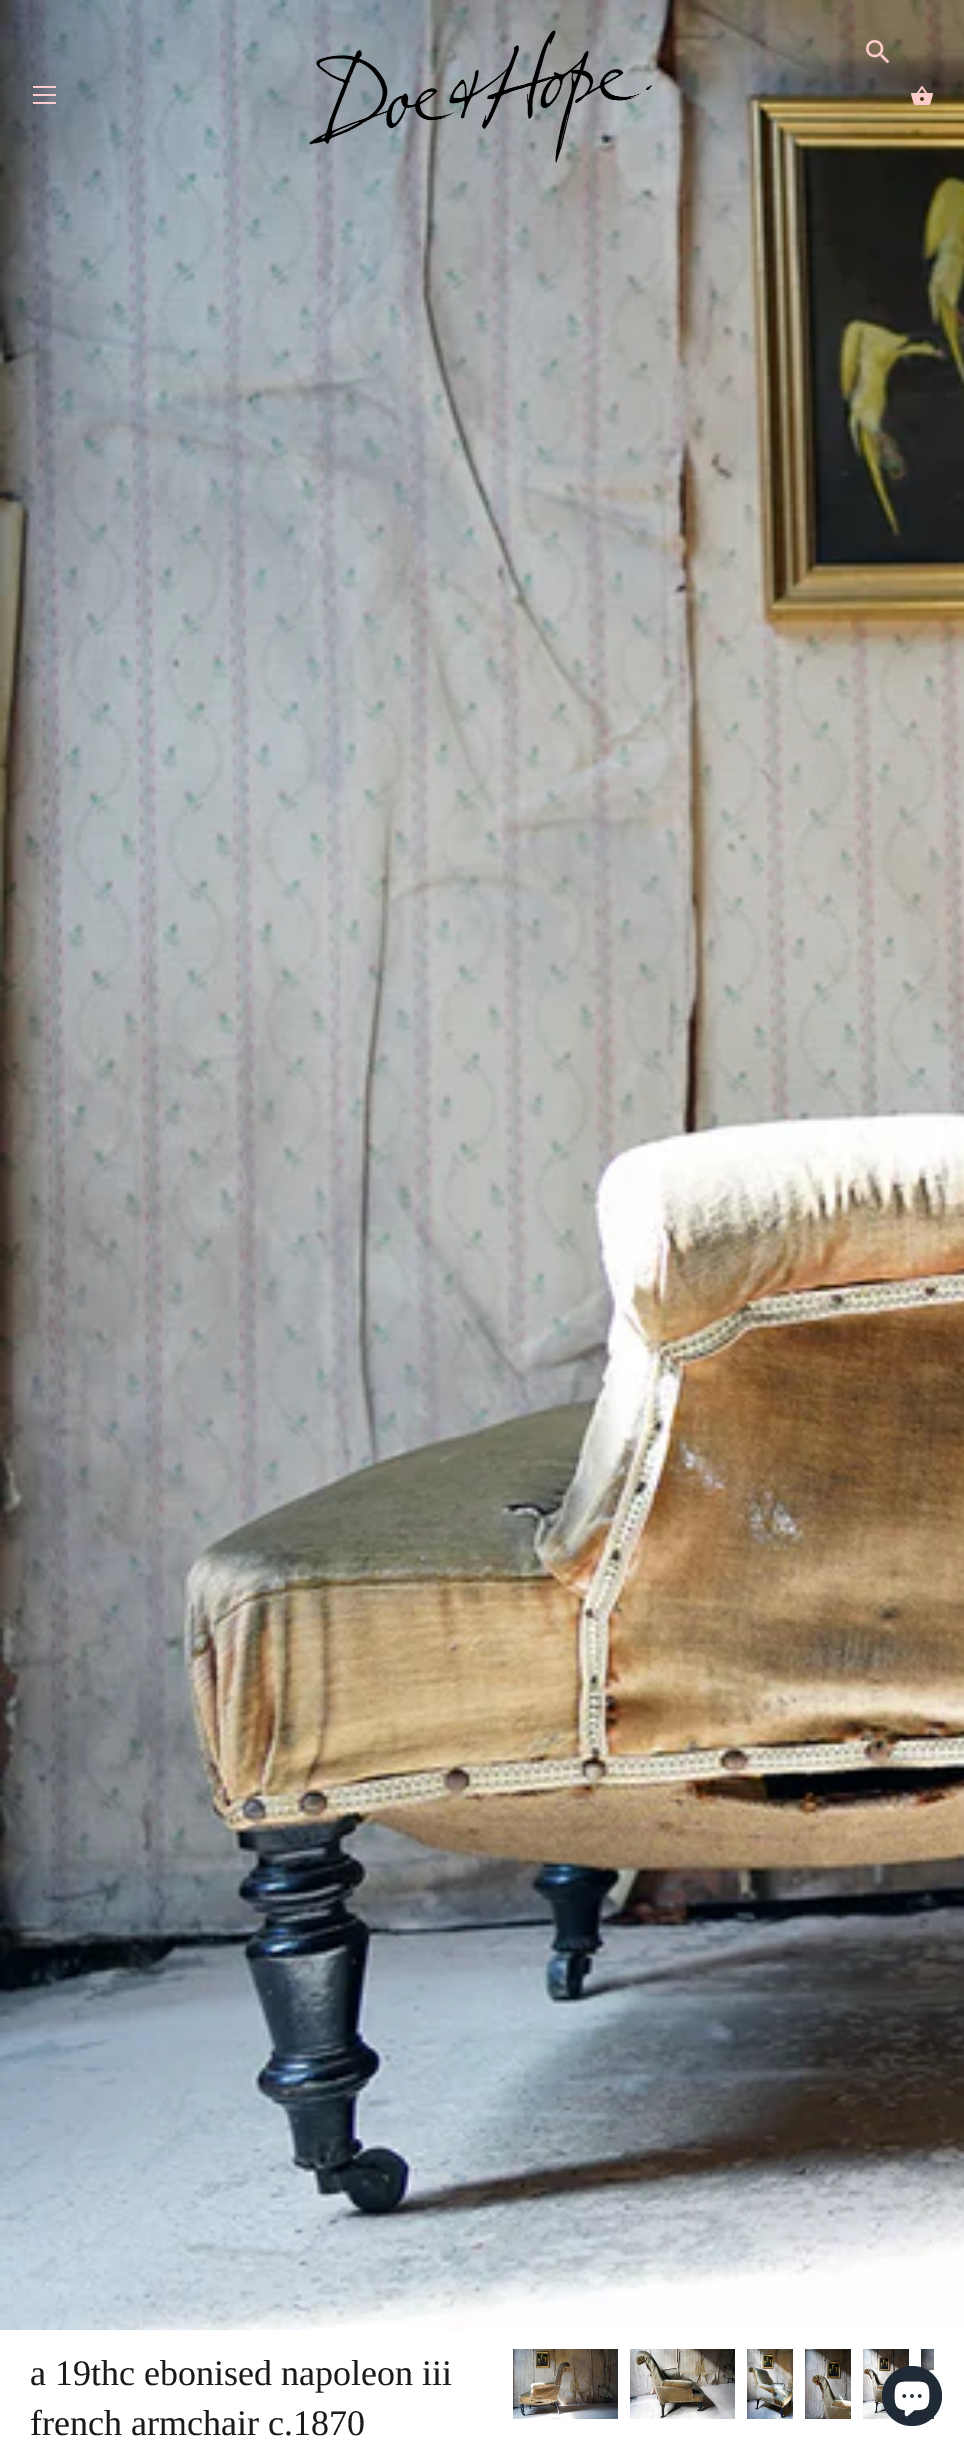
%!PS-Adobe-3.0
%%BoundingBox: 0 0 964 2447
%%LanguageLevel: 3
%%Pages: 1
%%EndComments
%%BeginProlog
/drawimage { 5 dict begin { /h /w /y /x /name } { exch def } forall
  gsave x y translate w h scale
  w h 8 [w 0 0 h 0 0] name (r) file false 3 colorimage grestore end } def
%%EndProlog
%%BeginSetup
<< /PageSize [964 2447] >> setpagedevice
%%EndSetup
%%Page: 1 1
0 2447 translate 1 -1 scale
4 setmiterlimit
1 setgray
0 0 964 2447 rectfill
(images/4.raw) 0 0 964 2330 drawimage
(images/1.raw) 309 30 343 133 drawimage
(images/2.raw) 866 40 24 24 drawimage
1 0.8 0.8 setrgbcolor
33 86 23 2 rectfill
33 94 23 2 rectfill
33 102 23 2 rectfill
(images/3.raw) 911 86 22 19 drawimage
(images/5.raw) 513 2349 105 70 drawimage
(images/6.raw) 630 2349 105 70 drawimage
(images/7.raw) 747 2349 46 70 drawimage
(images/8.raw) 805 2349 46 70 drawimage
(images/9.raw) 863 2349 46 70 drawimage
(images/10.raw) 921 2349 13 70 drawimage
1 setgray
newpath 934 2387 17 0 360 arc closepath fill
0.125 0.165 0.212 setrgbcolor
newpath 912 2396 30 0 360 arc closepath fill
(images/11.raw) 894 2381 36 36 drawimage
/LiberationSerif-Regular [36 0 0 -36 0 0] selectfont
0.102 setgray
30 2385 moveto (a 19thc ebonised napoleon iii) show
30 2435 moveto (french armchair c.1870) show
showpage
%%EOF
